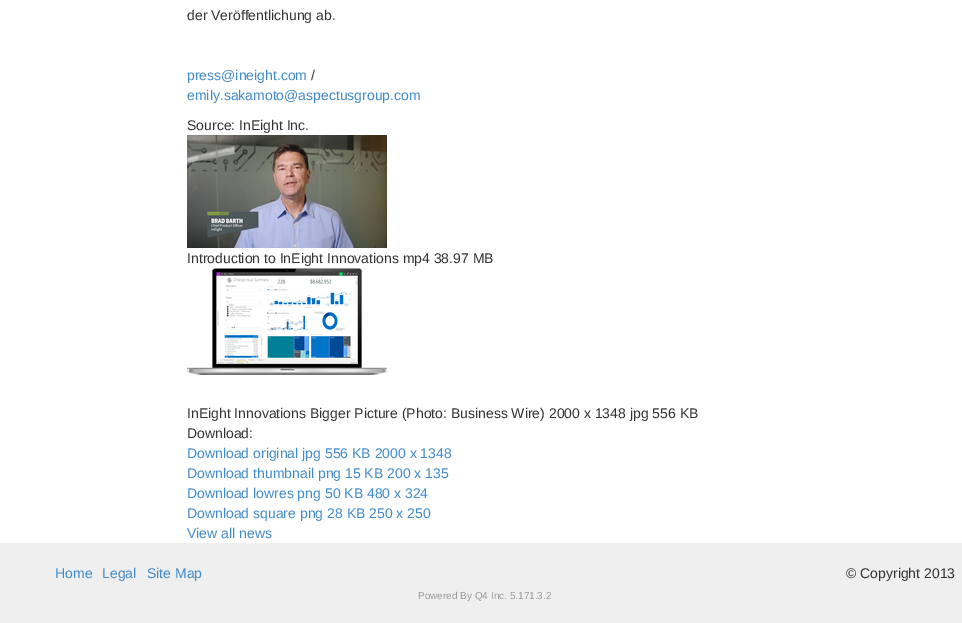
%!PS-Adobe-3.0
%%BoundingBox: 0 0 962 623
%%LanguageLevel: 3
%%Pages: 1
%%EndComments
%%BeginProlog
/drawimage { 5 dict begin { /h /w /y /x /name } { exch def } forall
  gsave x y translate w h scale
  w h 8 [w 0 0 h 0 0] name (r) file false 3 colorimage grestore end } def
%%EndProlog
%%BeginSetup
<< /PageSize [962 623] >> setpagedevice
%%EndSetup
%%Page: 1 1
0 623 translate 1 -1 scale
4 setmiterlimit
1 setgray
0 0 962 623 rectfill
(images/1.raw) 187 135 200 113 drawimage
(images/2.raw) 187 268 200 107 drawimage
0.937 setgray
0 543 962 80 rectfill
/LiberationSans-Regular [14 0 0 -14 0 0] selectfont
0.2 setgray
187 20 moveto (der Veröffentlichung ab.) show
0.259 0.545 0.792 setrgbcolor
187 80 moveto (press@ineight.com) show
0.2 setgray
311 80 moveto (/) show
0.259 0.545 0.792 setrgbcolor
187 100 moveto (emily.sakamoto@aspectusgroup.com) show
0.2 setgray
187 130 moveto (Source: InEight Inc.) show
187 263 moveto (Introduction to InEight Innovations mp4 38.97 MB) show
187 418 moveto (InEight Innovations Bigger Picture \(Photo: Business Wire\) 2000 x 1348 jpg 556 KB) show
187 438 moveto (Download:) show
0.259 0.545 0.792 setrgbcolor
187 458 moveto (Download original jpg 556 KB 2000 x 1348) show
187 478 moveto (Download thumbnail png 15 KB 200 x 135) show
187 498 moveto (Download lowres png 50 KB 480 x 324) show
187 518 moveto (Download square png 28 KB 250 x 250) show
187 538 moveto (View all news) show
55 578 moveto (Home) show
102 578 moveto (Legal) show
147 578 moveto (Site Map) show
0.2 setgray
846 578 moveto (© Copyright 2013) show
/LiberationSans-Regular [10 0 0 -10 0 0] selectfont
0.6 setgray
418 599 moveto (Powered By Q4 Inc. 5.171.3.2) show
showpage
%%EOF
